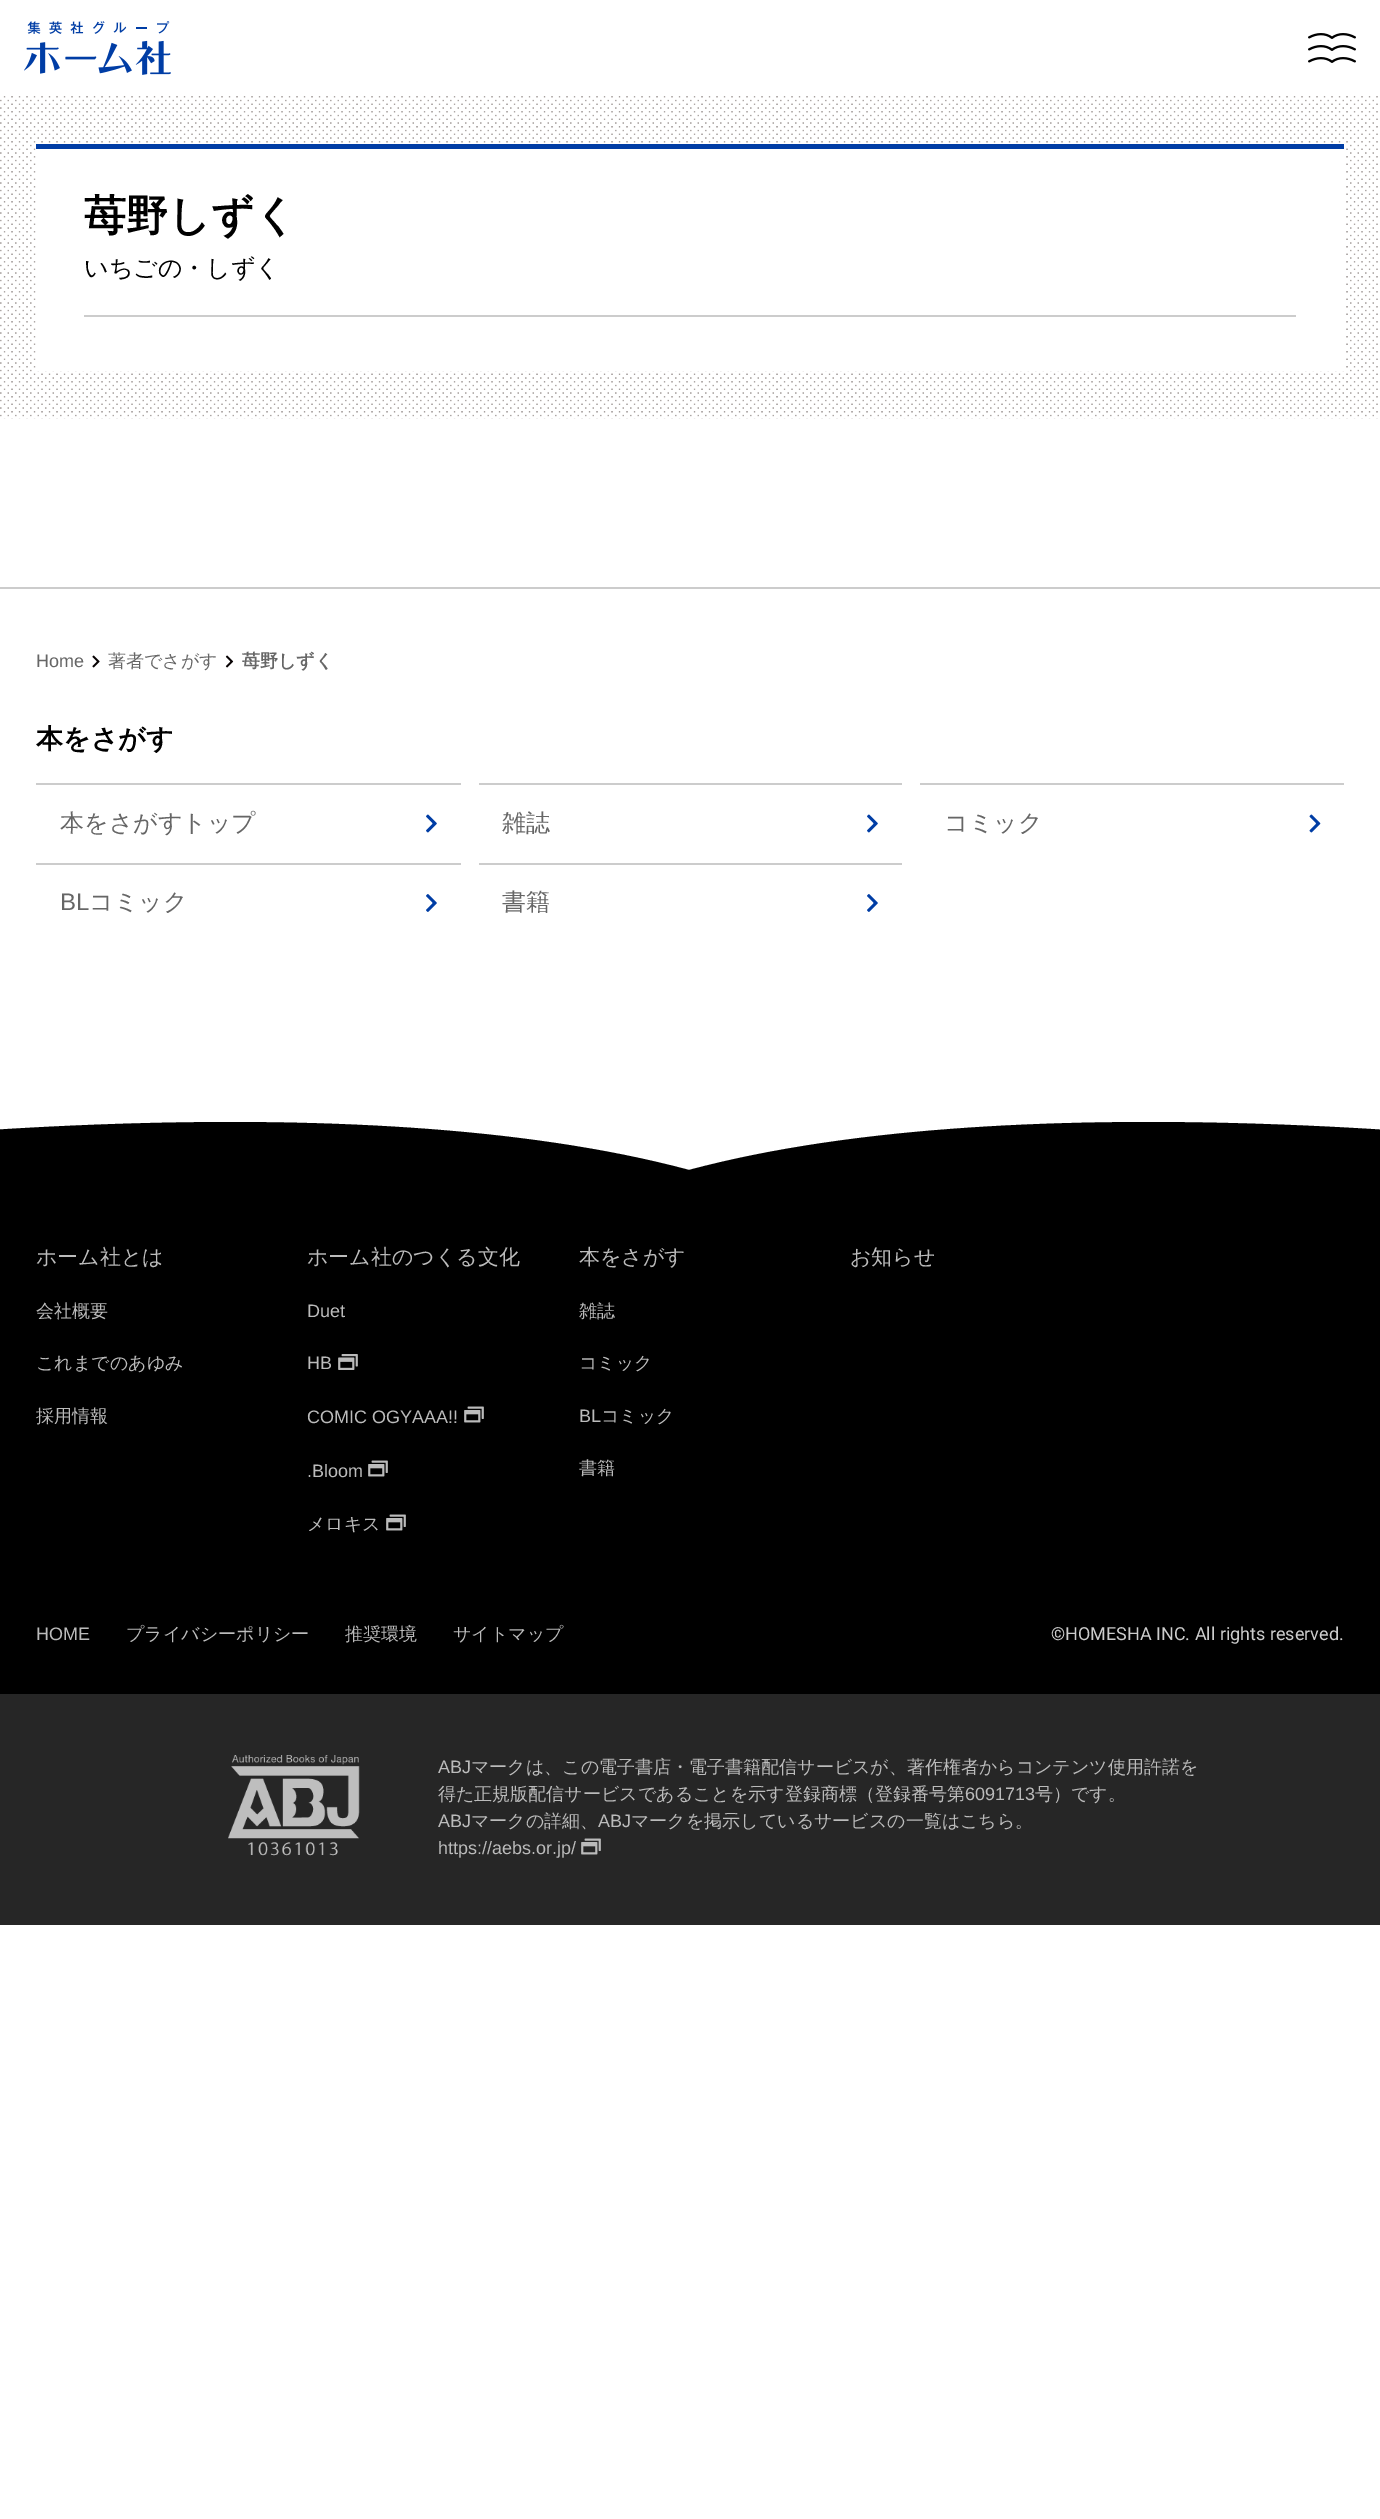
%!PS-Adobe-3.0
%%BoundingBox: 0 0 1380 2519
%%LanguageLevel: 3
%%Pages: 1
%%EndComments
%%BeginProlog
/drawimage { 5 dict begin { /h /w /y /x /name } { exch def } forall
  gsave x y translate w h scale
  w h 8 [w 0 0 h 0 0] name (r) file false 3 colorimage grestore end } def
%%EndProlog
%%BeginSetup
<< /PageSize [1380 2519] >> setpagedevice
%%EndSetup
%%Page: 1 1
0 2519 translate 1 -1 scale
4 setmiterlimit
1 setgray
0 0 1380 2519 rectfill
(images/1.raw) 24 21 147 54 drawimage
(images/2.raw) 1308 33 48 30 drawimage
(images/3.raw) 0 96 1378 323 drawimage
37 149 1307 222 rectfill
0 0.239 0.647 setrgbcolor
36 144 1308 5 rectfill
0.8 setgray
84 315 1212 2 rectfill
0 587 1380 2 rectfill
(images/4.raw) 92 655 8 13 drawimage
(images/5.raw) 225 655 9 13 drawimage
36 783 425 2 rectfill
(images/6.raw) 426 814 11 19 drawimage
479 783 423 2 rectfill
(images/6.raw) 867 814 11 19 drawimage
920 783 424 2 rectfill
(images/7.raw) 1309 814 12 19 drawimage
36 863 425 2 rectfill
(images/8.raw) 426 894 11 18 drawimage
479 863 423 2 rectfill
(images/8.raw) 867 894 11 18 drawimage
gsave
0 1122 1380 572 rectclip
0 setgray
newpath 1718 1163 moveto 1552 1140 1025 1080 689 1170 curveto 354 1080 -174 1140 -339 1163 curveto -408 1170 -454 1170 -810 1170 curveto -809 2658 lineto 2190 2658 lineto 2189 1170 lineto 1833 1170 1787 1170 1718 1163 curveto closepath fill
grestore
(images/9.raw) 338 1354 20 16 drawimage
(images/10.raw) 464 1406 20 17 drawimage
(images/10.raw) 368 1460 20 17 drawimage
(images/10.raw) 386 1514 20 17 drawimage
0.149 setgray
0 1694 1380 231 rectfill
(images/11.raw) 228 1755 132 101 drawimage
(images/12.raw) 581 1838 20 17 drawimage
/WenQuanYiZenHei-Bold [42 0 0 -42 0 0] selectfont
0 setgray
84 230 moveto (苺野しずく) show
/WenQuanYiZenHei-Medium [24 0 0 -24 0 0] selectfont
84 276 moveto (いちごの・しずく) show
/LiberationSans-Regular [18 0 0 -18 0 0] selectfont
0.4 setgray
36 667 moveto (Home) show
/WenQuanYiZenHei-Medium [18 0 0 -18 0 0] selectfont
108 667 moveto (著者でさがす) show
/WenQuanYiZenHei-Bold [18 0 0 -18 0 0] selectfont
242 667 moveto (苺野しずく) show
/WenQuanYiZenHei-Bold [27 0 0 -27 0 0] selectfont
0 setgray
36 748 moveto (本をさがす) show
/WenQuanYiZenHei-Medium [24 0 0 -24 0 0] selectfont
0.4 setgray
60 831 moveto (本をさがすトップ) show
502 831 moveto (雑誌) show
944 831 moveto (コミック) show
/LiberationSans-Regular [24 0 0 -24 0 0] selectfont
60 910 moveto (BL) show
/WenQuanYiZenHei-Medium [24 0 0 -24 0 0] selectfont
89 910 moveto (コミック) show
502 910 moveto (書籍) show
/WenQuanYiZenHei-Medium [21 0 0 -21 0 0] selectfont
0.733 setgray
36 1264 moveto (ホーム社とは) show
/WenQuanYiZenHei-Medium [18 0 0 -18 0 0] selectfont
36 1317 moveto (会社概要) show
36 1369 moveto (これまでのあゆみ) show
36 1422 moveto (採用情報) show
/WenQuanYiZenHei-Medium [21 0 0 -21 0 0] selectfont
307 1264 moveto (ホーム社のつくる文化) show
/LiberationSans-Regular [18 0 0 -18 0 0] selectfont
307 1317 moveto (Duet) show
307 1369 moveto (HB) show
307 1423 moveto (COMIC OGYAAA!!) show
307 1477 moveto (.Bloom) show
/WenQuanYiZenHei-Medium [18 0 0 -18 0 0] selectfont
307 1530 moveto (メロキス) show
/WenQuanYiZenHei-Medium [21 0 0 -21 0 0] selectfont
579 1264 moveto (本をさがす) show
/WenQuanYiZenHei-Medium [18 0 0 -18 0 0] selectfont
579 1317 moveto (雑誌) show
579 1369 moveto (コミック) show
/LiberationSans-Regular [18 0 0 -18 0 0] selectfont
579 1422 moveto (BL) show
/WenQuanYiZenHei-Medium [18 0 0 -18 0 0] selectfont
601 1422 moveto (コミック) show
579 1474 moveto (書籍) show
/WenQuanYiZenHei-Medium [21 0 0 -21 0 0] selectfont
850 1264 moveto (お知らせ) show
/LiberationSans-Regular [18 0 0 -18 0 0] selectfont
36 1640 moveto (HOME) show
/WenQuanYiZenHei-Medium [18 0 0 -18 0 0] selectfont
126 1640 moveto (プライバシーポリシー) show
345 1640 moveto (推奨環境) show
453 1640 moveto (サイトマップ) show
/Roboto-Regular [18 0 0 -18 0 0] selectfont
0.8 setgray
1051 1640 moveto (©HOMESHA INC. All rights reserved.) show
/LiberationSans-Regular [18 0 0 -18 0 0] selectfont
0.733 setgray
438 1773 moveto (ABJ) show
/WenQuanYiZenHei-Medium [18 0 0 -18 0 0] selectfont
471 1773 moveto (マークは、この電子書店・電子書籍配信サービスが、著作権者からコンテンツ使用許諾を) show
438 1800 moveto (得た正規版配信サービスであることを示す登録商標（登録番号第) show
/LiberationSans-Regular [18 0 0 -18 0 0] selectfont
965 1800 moveto (6091713) show
/WenQuanYiZenHei-Medium [18 0 0 -18 0 0] selectfont
1035 1800 moveto (号）です。) show
/LiberationSans-Regular [18 0 0 -18 0 0] selectfont
438 1827 moveto (ABJ) show
/WenQuanYiZenHei-Medium [18 0 0 -18 0 0] selectfont
471 1827 moveto (マークの詳細、) show
/LiberationSans-Regular [18 0 0 -18 0 0] selectfont
598 1827 moveto (ABJ) show
/WenQuanYiZenHei-Medium [18 0 0 -18 0 0] selectfont
631 1827 moveto (マークを掲示しているサービスの一覧はこちら。) show
/LiberationSans-Regular [18 0 0 -18 0 0] selectfont
438 1854 moveto (https://aebs.or.jp/) show
showpage
%%EOF
